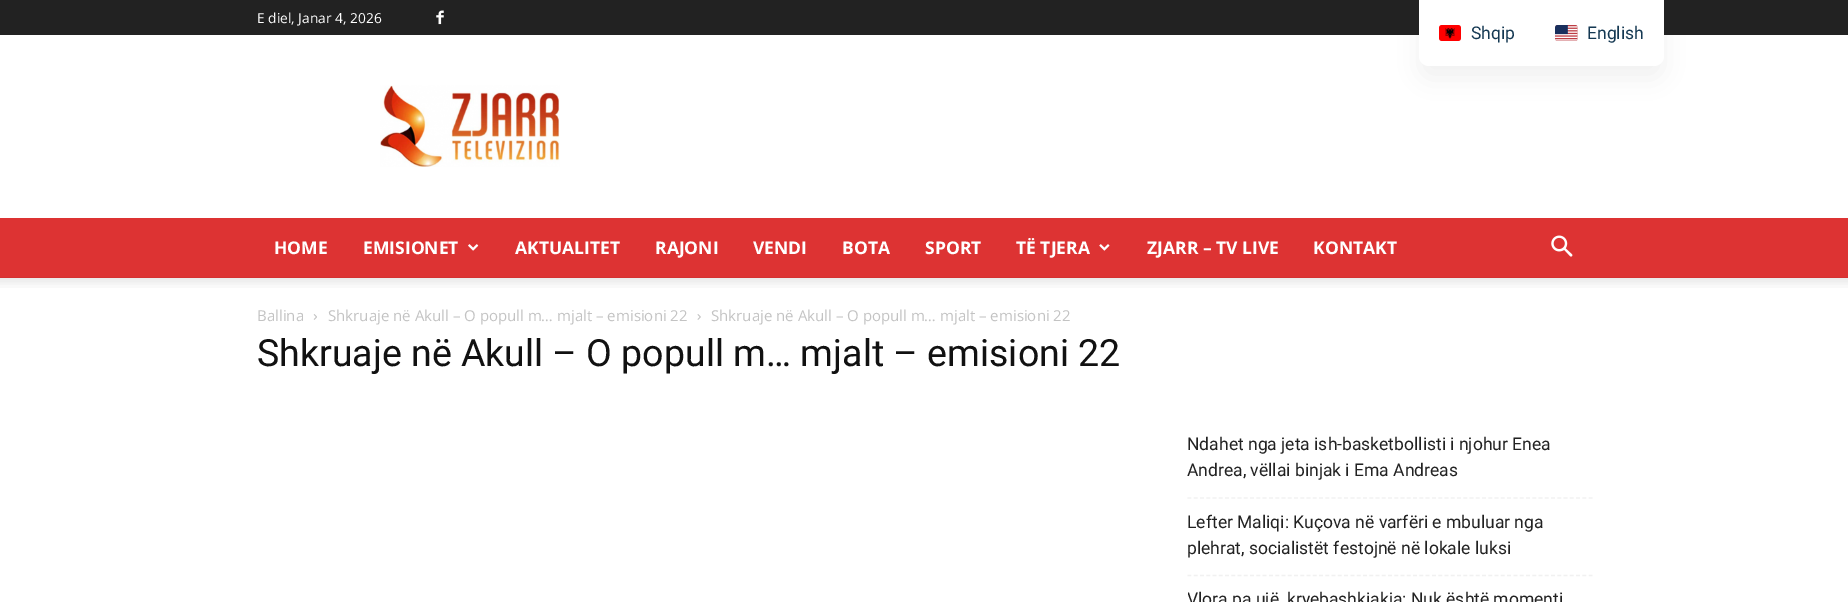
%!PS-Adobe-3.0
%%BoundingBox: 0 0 1848 602
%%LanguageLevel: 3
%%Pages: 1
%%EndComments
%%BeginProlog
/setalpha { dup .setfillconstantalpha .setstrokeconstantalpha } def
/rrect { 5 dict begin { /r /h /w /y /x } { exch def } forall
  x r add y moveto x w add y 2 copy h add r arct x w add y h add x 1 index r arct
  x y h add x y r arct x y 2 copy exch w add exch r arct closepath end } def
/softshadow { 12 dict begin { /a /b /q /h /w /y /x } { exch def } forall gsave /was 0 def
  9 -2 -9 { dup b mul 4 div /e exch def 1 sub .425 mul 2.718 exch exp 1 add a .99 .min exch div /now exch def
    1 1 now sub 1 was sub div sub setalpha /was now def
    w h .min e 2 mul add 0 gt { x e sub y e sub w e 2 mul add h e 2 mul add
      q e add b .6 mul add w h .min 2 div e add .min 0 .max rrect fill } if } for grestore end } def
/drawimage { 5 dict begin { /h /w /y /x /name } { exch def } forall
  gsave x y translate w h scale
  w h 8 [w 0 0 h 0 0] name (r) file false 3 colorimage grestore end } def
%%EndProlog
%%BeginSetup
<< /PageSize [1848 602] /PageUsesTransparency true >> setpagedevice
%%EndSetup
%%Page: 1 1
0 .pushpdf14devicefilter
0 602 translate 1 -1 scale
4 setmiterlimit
1 setgray
0 0 1848 602 rectfill
0.133 setgray
0 0 1848 35 rectfill
(images/1.raw) 436 10 8 15 drawimage
(images/2.raw) 380 85 180 82 drawimage
0.867 0.2 0.2 setrgbcolor
0 218 1848 60 rectfill
(images/3.raw) 468 244 11 7 drawimage
(images/4.raw) 1099 244 11 7 drawimage
(images/5.raw) 1551 235 22 22 drawimage
(images/6.raw) 0 277 1848 11 drawimage
(images/7.raw) 313 314 4 6 drawimage
(images/8.raw) 697 314 4 6 drawimage
0.945 setgray
1.2 setlinewidth
[3.75 2.52] 0 setdash
newpath 1187.5 498 moveto 1592.5 498 lineto stroke
newpath 1187.5 575.5 moveto 1592.5 575.5 lineto stroke
0 setgray
1419 13 245 66 10 12.5 0.05 softshadow
1 setgray
newpath 1419 0 moveto 1664 0 lineto 1664 56 lineto 1664 61.5 1659.5 66 1654 66 curveto 1429 66 lineto 1423.5 66 1419 61.5 1419 56 curveto closepath fill
(images/9.raw) 1439 25 22 16 drawimage
(images/10.raw) 1555 25 23 16 drawimage
/OpenSans-Regular [13.75 0 0 -13.75 0 0] selectfont
257 23 moveto (E diel, Janar 4, 2026) show
/OpenSans-Bold [17.5 0 0 -17.5 0 0] selectfont
274 254 moveto (HOME) show
363 254 moveto (EMISIONET) show
515 254 moveto (AKTUALITET) show
655 254 moveto (RAJONI) show
753 254 moveto (VENDI) show
842 254 moveto (BOTA) show
925 254 moveto (SPORT) show
1016 254 moveto (TË TJERA) show
1147 254 moveto (ZJARR – TV LIVE) show
1313 254 moveto (KONTAKT) show
/OpenSans-Regular [15 0 0 -15 0 0] selectfont
0.765 setgray
257 321 moveto (Ballina) show
328 321 moveto (Shkruaje në Akull – O popull m… mjalt – emisioni 22) show
711 321 moveto (Shkruaje në Akull – O popull m… mjalt – emisioni 22) show
/Roboto-Regular [37.5 0 0 -37.5 0 0] selectfont
0.067 setgray
257 366 moveto (Shkruaje në Akull – O popull m… mjalt – emisioni 22) show
/Roboto-Regular [17.5 0 0 -17.5 0 0] selectfont
0.133 setgray
1187 450 moveto (Ndahet nga jeta ish-basketbollisti i njohur Enea) show
1187 476 moveto (Andrea, vëllai binjak i Ema Andreas) show
1187 528 moveto (Lefter Maliqi: Kuçova në varfëri e mbuluar nga) show
1187 554 moveto (plehrat, socialistët festojnë në lokale luksi) show
gsave
1188 415 405 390 rectclip
1187 605 moveto (Vlora pa ujë, kryebashkiakja: Nuk është momenti) show
grestore
0.078 0.22 0.322 setrgbcolor
1471 39 moveto (Shqip) show
1587 39 moveto (English) show
.poppdf14devicefilter showpage
%%EOF
